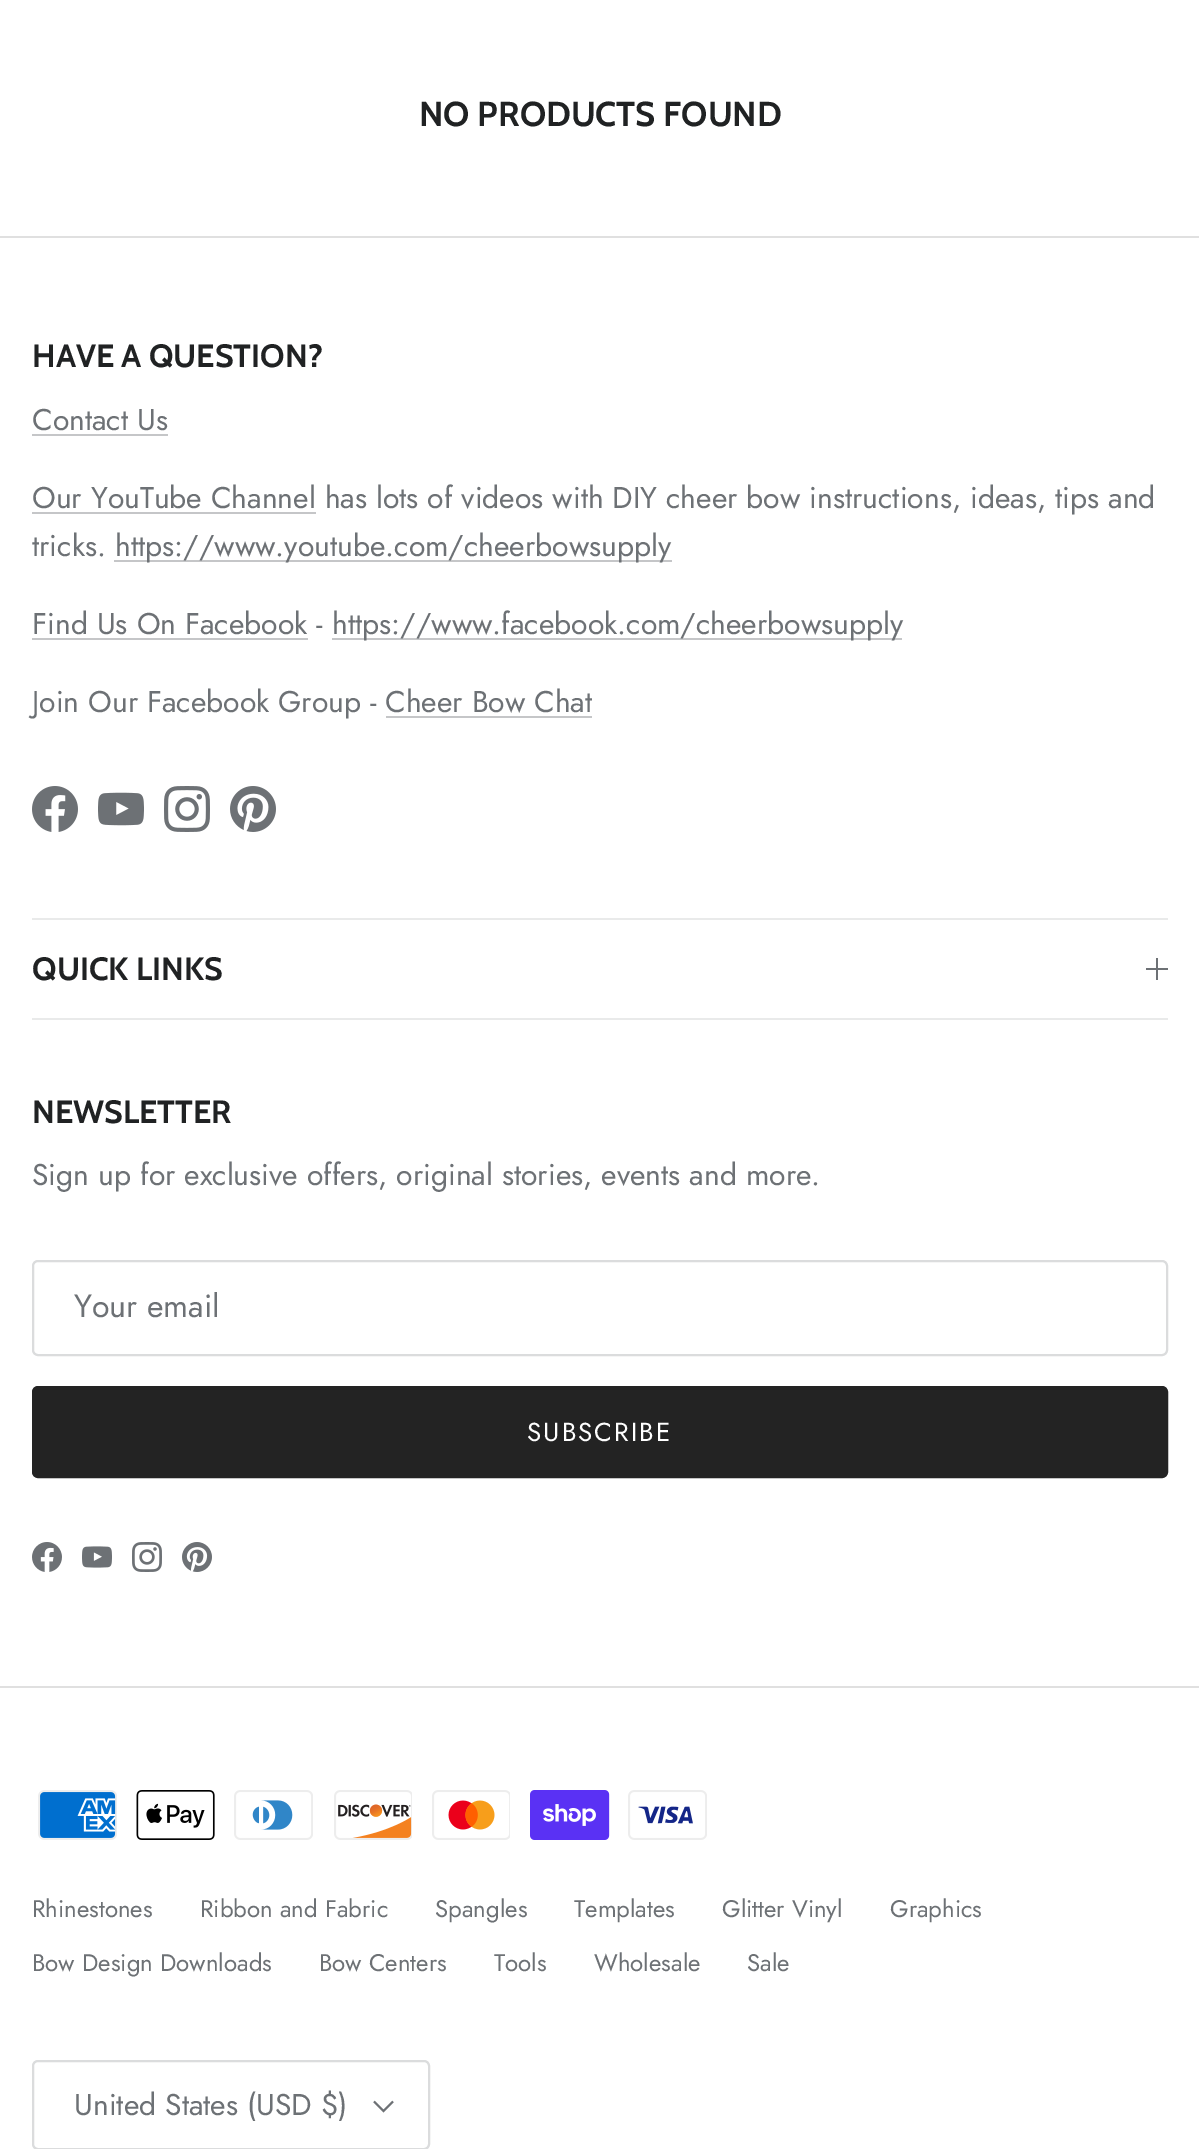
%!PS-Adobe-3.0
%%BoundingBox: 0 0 1199 2149
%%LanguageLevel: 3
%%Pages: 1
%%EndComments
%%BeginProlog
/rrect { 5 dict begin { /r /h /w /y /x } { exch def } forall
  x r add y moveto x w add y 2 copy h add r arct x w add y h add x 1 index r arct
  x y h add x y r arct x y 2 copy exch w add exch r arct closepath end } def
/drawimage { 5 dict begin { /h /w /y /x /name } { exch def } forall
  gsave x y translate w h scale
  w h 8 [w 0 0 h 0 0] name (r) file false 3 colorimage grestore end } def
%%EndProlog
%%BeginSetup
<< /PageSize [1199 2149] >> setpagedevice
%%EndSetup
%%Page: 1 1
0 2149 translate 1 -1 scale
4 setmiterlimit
1 setgray
0 0 1199 2149 rectfill
0.878 setgray
0 236 1199 2 rectfill
0.773 0.776 0.784 setrgbcolor
32 434 136 2 rectfill
32 512 284 2 rectfill
114 560 558 2 rectfill
32 638 276 2 rectfill
332 638 570 2 rectfill
(images/1.raw) 32 786 46 46 drawimage
(images/2.raw) 98 792 46 34 drawimage
(images/3.raw) 164 786 46 46 drawimage
(images/4.raw) 230 786 46 46 drawimage
0.914 0.918 0.918 setrgbcolor
32 918 1136 2 rectfill
32 1018 1136 2 rectfill
0.427 0.443 0.459 setrgbcolor
1156 958 2 22 rectfill
1146 968 22 2 rectfill
0.859 0.863 0.867 setrgbcolor
2 setlinewidth
33 1261 1134 94 5 rrect stroke
0.137 setgray
33 1387 1134 90 5 rrect gsave fill grestore
stroke
(images/5.raw) 32 1542 30 30 drawimage
(images/6.raw) 82 1546 30 22 drawimage
(images/7.raw) 132 1542 30 30 drawimage
(images/8.raw) 182 1542 30 30 drawimage
0.878 setgray
0 1686 1199 2 rectfill
(images/9.raw) 38 1790 79 50 drawimage
(images/10.raw) 136 1790 79 50 drawimage
(images/11.raw) 234 1790 79 50 drawimage
(images/12.raw) 334 1790 78 50 drawimage
(images/13.raw) 432 1790 78 50 drawimage
(images/14.raw) 530 1790 80 50 drawimage
(images/15.raw) 628 1790 79 50 drawimage
0.859 0.863 0.867 setrgbcolor
33 2061 396 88 5 rrect stroke
0.427 0.443 0.459 setrgbcolor
1.9 setlinewidth
newpath 393 2101.5 moveto 383.5 2111 lineto 374 2101.5 lineto stroke
/Cabin-Bold [34.5 0 0 -34.5 0 0] selectfont
0.125 0.133 0.137 setrgbcolor
419 126 moveto (NO PRODUCTS FOUND) show
/Cabin-Bold [32.25 0 0 -32.25 0 0] selectfont
32 367 moveto (HAVE A QUESTION?) show
/Jost-Regular [30 0 0 -30 0 0] selectfont
0.427 0.443 0.459 setrgbcolor
32 430 moveto (Contact Us) show
32 508 moveto (Our YouTube Channel has lots of videos with DIY cheer bow instructions, ideas, tips and) show
32 556 moveto (tricks.) show
115 556 moveto (https://www.youtube.com/cheerbowsupply) show
32 634 moveto (Find Us On Facebook -) show
332 634 moveto (https://www.facebook.com/cheerbowsupply) show
32 712 moveto (Join Our Facebook Group - Cheer Bow Chat) show
0.773 0.776 0.784 setrgbcolor
386 716 206 2 rectfill
/Cabin-Bold [32.25 0 0 -32.25 0 0] selectfont
0.125 0.133 0.137 setrgbcolor
32 980 moveto (QUICK LINKS) show
32 1123 moveto (NEWSLETTER) show
/Jost-Regular [30 0 0 -30 0 0] selectfont
0.427 0.443 0.459 setrgbcolor
32 1185 moveto (Sign up for exclusive offers, original stories, events and more.) show
/Jost-Regular [32 0 0 -32 0 0] selectfont
74 1317 moveto (Your email) show
/Jost-Regular [26 0 0 -26 0 0] selectfont
1 setgray
527 1441 moveto 2 0 (SUBSCRIBE) ashow
/Jost-Regular [24 0 0 -24 0 0] selectfont
0.427 0.443 0.459 setrgbcolor
32 1917 moveto (Rhinestones) show
200 1917 moveto (Ribbon and Fabric) show
435 1917 moveto (Spangles) show
574 1917 moveto (Templates) show
722 1917 moveto (Glitter Vinyl) show
890 1917 moveto (Graphics) show
32 1971 moveto (Bow Design Downloads) show
319 1971 moveto (Bow Centers) show
494 1971 moveto (Tools) show
594 1971 moveto (Wholesale) show
747 1971 moveto (Sale) show
/Jost-Regular [30 0 0 -30 0 0] selectfont
74 2115 moveto (United States \(USD $\)) show
showpage
%%EOF
